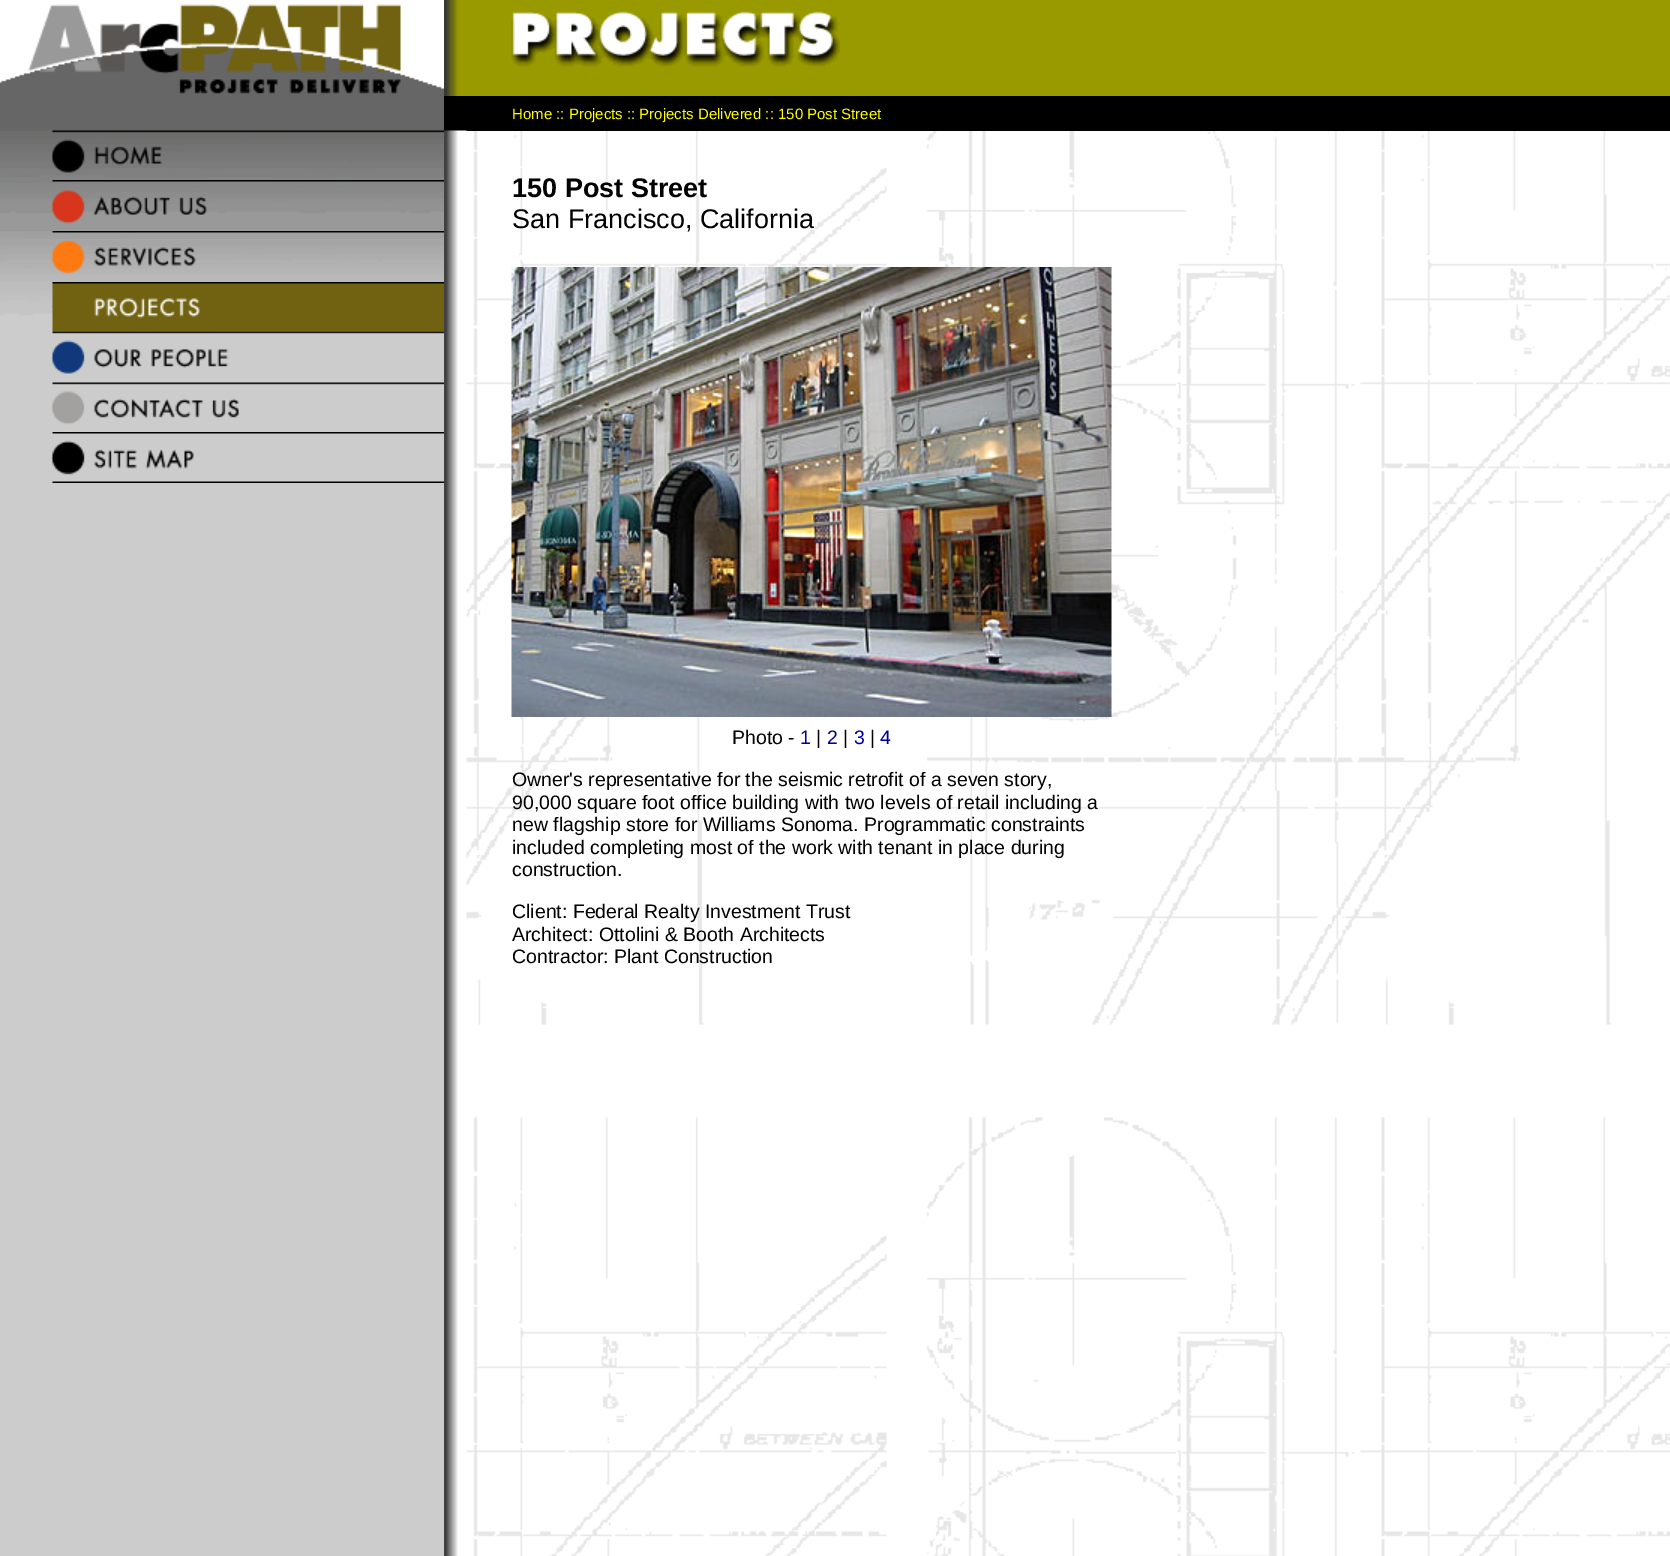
%!PS-Adobe-3.0
%%BoundingBox: 0 0 1670 1556
%%LanguageLevel: 3
%%Pages: 1
%%EndComments
%%BeginProlog
/drawimage { 5 dict begin { /h /w /y /x /name } { exch def } forall
  gsave x y translate w h scale
  w h 8 [w 0 0 h 0 0] name (r) file false 3 colorimage grestore end } def
%%EndProlog
%%BeginSetup
<< /PageSize [1670 1556] >> setpagedevice
%%EndSetup
%%Page: 1 1
0 1556 translate 1 -1 scale
4 setmiterlimit
1 setgray
0 0 1670 1556 rectfill
(images/1.raw) 466 131 1204 1425 drawimage
(images/2.raw) 0 0 444 96 drawimage
0.6 0.6 0 setrgbcolor
840 0 830 96 rectfill
(images/3.raw) 444 0 396 96 drawimage
0.4 setgray
0 96 444 35 rectfill
0 setgray
444 96 1226 35 rectfill
0.8 setgray
0 331 444 1225 rectfill
(images/4.raw) 0 130 444 50 drawimage
(images/5.raw) 0 180 444 51 drawimage
(images/6.raw) 0 231 444 51 drawimage
(images/7.raw) 0 282 444 50 drawimage
(images/8.raw) 51 331 393 43 drawimage
(images/9.raw) 51 382 393 43 drawimage
(images/10.raw) 51 432 393 43 drawimage
(images/11.raw) 52 481 392 2 drawimage
(images/12.raw) 444 130 23 1426 drawimage
(images/13.raw) 511 267 601 450 drawimage
/LiberationSans-Regular [15 0 0 -15 0 0] selectfont
1 1 0 setrgbcolor
512 119 moveto (Home :: Projects :: Projects Delivered :: 150 Post Street) show
/LiberationSans-Bold [27 0 0 -27 0 0] selectfont
0 setgray
512 197 moveto (150 Post Street) show
/LiberationSans-Regular [27 0 0 -27 0 0] selectfont
512 228 moveto (San Francisco, California) show
/LiberationSans-Regular [19.5 0 0 -19.5 0 0] selectfont
732 744 moveto (Photo -) show
0 0 0.6 setrgbcolor
800 744 moveto (1) show
0 setgray
816 744 moveto (|) show
0 0 0.6 setrgbcolor
827 744 moveto (2) show
0 setgray
843 744 moveto (|) show
0 0 0.6 setrgbcolor
854 744 moveto (3) show
0 setgray
870 744 moveto (|) show
0 0 0.6 setrgbcolor
880 744 moveto (4) show
0 setgray
512 786 moveto (Owner's representative for the seismic retrofit of a seven story,) show
512 809 moveto (90,000 square foot office building with two levels of retail including a) show
512 831 moveto (new flagship store for Williams Sonoma. Programmatic constraints) show
512 854 moveto (included completing most of the work with tenant in place during) show
512 876 moveto (construction.) show
512 918 moveto (Client: Federal Realty Investment Trust) show
512 941 moveto (Architect: Ottolini & Booth Architects) show
512 963 moveto (Contractor: Plant Construction) show
showpage
%%EOF
